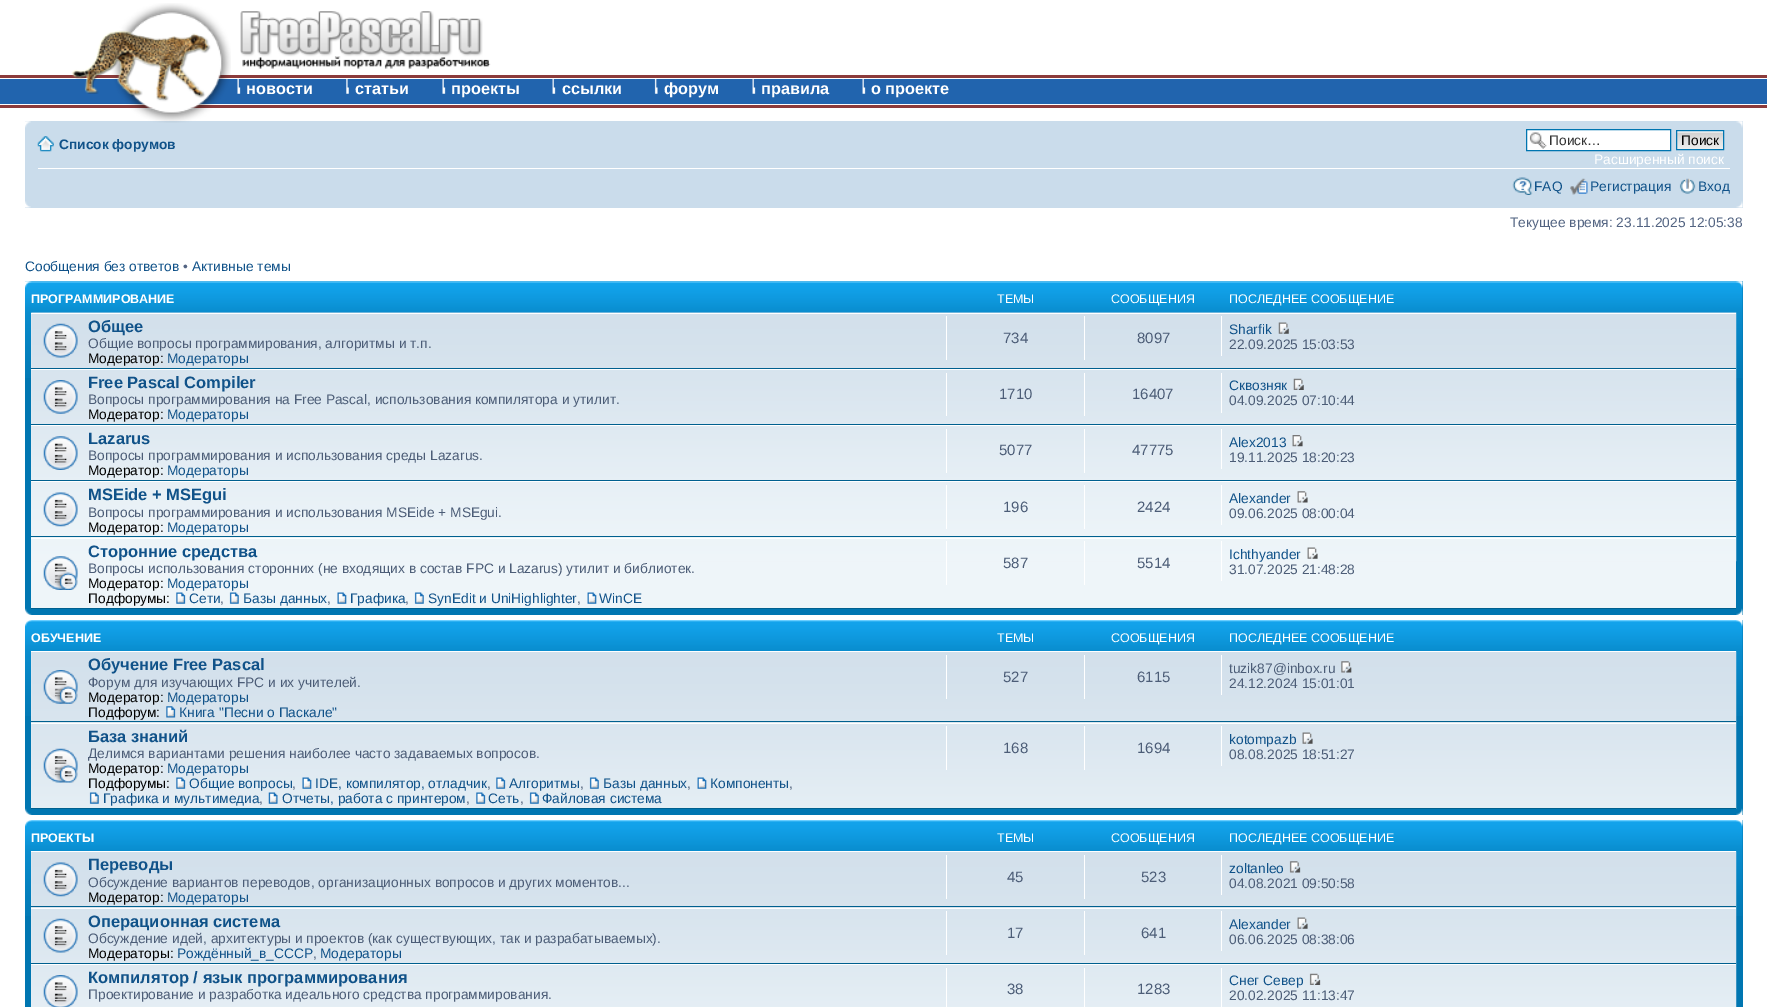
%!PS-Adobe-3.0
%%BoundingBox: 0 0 1767 1007
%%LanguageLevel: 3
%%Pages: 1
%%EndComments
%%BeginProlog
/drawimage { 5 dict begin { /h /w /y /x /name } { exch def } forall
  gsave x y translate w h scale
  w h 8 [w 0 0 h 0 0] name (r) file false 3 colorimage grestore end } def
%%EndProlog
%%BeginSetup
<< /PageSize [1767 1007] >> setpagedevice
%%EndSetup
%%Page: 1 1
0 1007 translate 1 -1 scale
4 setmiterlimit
1 setgray
0 0 1767 1007 rectfill
0.549 0.231 0.231 setrgbcolor
0 75 1767 3 rectfill
0.129 0.392 0.682 setrgbcolor
0 79 1767 25 rectfill
0.549 0.231 0.231 setrgbcolor
0 105 1767 3 rectfill
0.792 0.863 0.922 setrgbcolor
25 121 1718 87 rectfill
(images/1.raw) 71 3 160 120 drawimage
(images/2.raw) 240 11 251 58 drawimage
(images/3.raw) 237 79 4 15 drawimage
(images/4.raw) 346 79 3 15 drawimage
(images/3.raw) 442 79 4 15 drawimage
(images/5.raw) 552 79 4 15 drawimage
(images/6.raw) 654 79 4 15 drawimage
(images/5.raw) 752 79 4 15 drawimage
(images/5.raw) 862 79 4 15 drawimage
(images/7.raw) 25 121 6 7 drawimage
(images/8.raw) 1736 121 7 7 drawimage
1 setgray
38 168 1692 1 rectfill
(images/9.raw) 37 136 17 16 drawimage
1527 130 143 20 rectfill
(images/10.raw) 1529 132 18 17 drawimage
0 0.459 0.69 setrgbcolor
1526.5 129.5 144 21 rectstroke
0.98 setgray
1677 131 46 1 rectfill
(images/11.raw) 1677 132 46 17 drawimage
0 0.459 0.69 setrgbcolor
1676.5 130.5 47 19 rectstroke
(images/12.raw) 1512 177 21 18 drawimage
(images/13.raw) 1570 178 18 17 drawimage
(images/14.raw) 1679 178 17 16 drawimage
(images/15.raw) 25 201 6 7 drawimage
(images/16.raw) 1736 201 7 7 drawimage
0 0.463 0.694 setrgbcolor
25 281 1718 334 rectfill
(images/17.raw) 25 281 1718 97 drawimage
(images/18.raw) 25 281 7 7 drawimage
(images/19.raw) 1736 281 7 7 drawimage
0.933 0.961 0.976 setrgbcolor
31 314 1705 294 rectfill
(images/20.raw) 31 312 1706 250 drawimage
1 setgray
31 313 1705 1 rectfill
0 0.376 0.561 setrgbcolor
31 368 1705 1 rectfill
(images/21.raw) 43 323 35 35 drawimage
1 setgray
946 316 1 44 rectfill
1084 316 1 44 rectfill
1221 316 1 40 rectfill
(images/22.raw) 1278 322 11 12 drawimage
31 369 1705 1 rectfill
0 0.376 0.561 setrgbcolor
31 424 1705 1 rectfill
(images/23.raw) 43 380 35 34 drawimage
1 setgray
946 373 1 43 rectfill
1084 373 1 43 rectfill
1221 373 1 40 rectfill
(images/24.raw) 1293 378 11 12 drawimage
31 425 1705 1 rectfill
0 0.376 0.561 setrgbcolor
31 480 1705 1 rectfill
(images/25.raw) 43 436 35 34 drawimage
1 setgray
946 429 1 44 rectfill
1084 429 1 44 rectfill
1221 429 1 40 rectfill
(images/26.raw) 1292 435 11 12 drawimage
31 481 1705 1 rectfill
0 0.376 0.561 setrgbcolor
31 536 1705 1 rectfill
(images/27.raw) 43 492 35 35 drawimage
1 setgray
946 485 1 44 rectfill
1084 485 1 44 rectfill
1221 485 1 40 rectfill
(images/28.raw) 1297 491 11 12 drawimage
31 538 1705 1 rectfill
0 0.376 0.561 setrgbcolor
31 608 1705 1 rectfill
(images/29.raw) 43 556 35 34 drawimage
(images/30.raw) 176 592 10 12 drawimage
(images/31.raw) 229 592 10 12 drawimage
(images/32.raw) 337 592 10 12 drawimage
(images/33.raw) 414 592 10 12 drawimage
(images/34.raw) 587 592 10 12 drawimage
1 setgray
946 541 1 44 rectfill
1084 541 1 44 rectfill
1221 541 1 40 rectfill
(images/35.raw) 1307 547 11 12 drawimage
(images/36.raw) 25 608 7 7 drawimage
(images/37.raw) 1736 608 7 7 drawimage
0 0.463 0.694 setrgbcolor
25 620 1718 195 rectfill
(images/38.raw) 25 620 1718 96 drawimage
(images/39.raw) 25 620 7 7 drawimage
(images/40.raw) 1736 620 7 7 drawimage
(images/41.raw) 31 651 1706 158 drawimage
1 setgray
31 651 1705 1 rectfill
0 0.376 0.561 setrgbcolor
31 721 1705 1 rectfill
(images/42.raw) 43 670 35 34 drawimage
(images/43.raw) 166 706 10 12 drawimage
1 setgray
946 655 1 44 rectfill
1084 655 1 44 rectfill
1221 655 1 40 rectfill
(images/44.raw) 1341 661 11 12 drawimage
31 723 1705 1 rectfill
0 0.376 0.561 setrgbcolor
31 808 1705 1 rectfill
(images/45.raw) 43 748 35 35 drawimage
(images/46.raw) 176 777 10 12 drawimage
(images/47.raw) 302 777 10 12 drawimage
(images/46.raw) 496 777 10 12 drawimage
(images/48.raw) 589 777 10 12 drawimage
(images/49.raw) 697 777 10 12 drawimage
(images/50.raw) 89 792 10 12 drawimage
(images/51.raw) 268 792 10 12 drawimage
(images/52.raw) 476 792 10 12 drawimage
(images/53.raw) 529 792 10 12 drawimage
1 setgray
946 726 1 44 rectfill
1084 726 1 44 rectfill
1221 726 1 40 rectfill
(images/54.raw) 1302 732 11 12 drawimage
(images/36.raw) 25 808 7 7 drawimage
(images/55.raw) 1736 808 7 7 drawimage
0 0.463 0.694 setrgbcolor
25 820 1718 187 rectfill
(images/56.raw) 25 820 1718 96 drawimage
(images/39.raw) 25 820 7 7 drawimage
(images/57.raw) 1736 820 7 7 drawimage
(images/58.raw) 31 851 1706 156 drawimage
1 setgray
31 851 1705 1 rectfill
0 0.376 0.561 setrgbcolor
31 906 1705 1 rectfill
(images/59.raw) 43 862 35 35 drawimage
1 setgray
946 855 1 44 rectfill
1084 855 1 44 rectfill
1221 855 1 40 rectfill
(images/60.raw) 1289 861 12 12 drawimage
31 908 1705 1 rectfill
0 0.376 0.561 setrgbcolor
31 963 1705 1 rectfill
(images/61.raw) 43 918 35 35 drawimage
1 setgray
946 911 1 44 rectfill
1084 911 1 44 rectfill
1221 911 1 40 rectfill
(images/62.raw) 1297 917 11 12 drawimage
31 964 1705 1 rectfill
(images/63.raw) 43 975 35 32 drawimage
946 968 1 39 rectfill
1084 968 1 39 rectfill
1221 968 1 39 rectfill
(images/64.raw) 1309 973 12 12 drawimage
/LiberationSans-Bold [16.25 0 0 -16.25 0 0] selectfont
246 94 moveto (новости) show
355 94 moveto (статьи) show
451 94 moveto (проекты) show
562 94 moveto (ссылки) show
664 94 moveto (форум) show
761 94 moveto (правила) show
871 94 moveto (о проекте) show
/LiberationSans-Bold [13.75 0 0 -13.75 0 0] selectfont
0.063 0.322 0.537 setrgbcolor
59 149 moveto (Список форумов) show
/LiberationSans-Regular [13.75 0 0 -13.75 0 0] selectfont
0.2 setgray
1549 145 moveto (Поиск…) show
0 setgray
1681 145 moveto (Поиск) show
1 setgray
1594 164 moveto (Расширенный поиск) show
0.063 0.322 0.537 setrgbcolor
1534 191 moveto (FAQ) show
1590 191 moveto (Регистрация) show
1698 191 moveto (Вход) show
0.325 0.392 0.51 setrgbcolor
1510 227 moveto (Текущее время: 23.11.2025 12:05:38) show
0.063 0.322 0.537 setrgbcolor
25 271 moveto (Сообщения без ответов) show
0.325 0.392 0.51 setrgbcolor
183 271 moveto (•) show
0.063 0.322 0.537 setrgbcolor
192 271 moveto (Активные темы) show
/LiberationSans-Bold [12.5 0 0 -12.5 0 0] selectfont
1 setgray
31 303 moveto (ПРОГРАММИРОВАНИЕ) show
/LiberationSans-Regular [12.5 0 0 -12.5 0 0] selectfont
997 303 moveto (ТЕМЫ) show
1111 303 moveto (СООБЩЕНИЯ) show
1229 303 moveto (ПОСЛЕДНЕЕ СООБЩЕНИЕ) show
/LiberationSans-Bold [16.5 0 0 -16.5 0 0] selectfont
0.063 0.322 0.537 setrgbcolor
88 332 moveto (Общее) show
/LiberationSans-Regular [13.75 0 0 -13.75 0 0] selectfont
0.298 0.365 0.467 setrgbcolor
88 348 moveto (Общие вопросы программирования, алгоритмы и т.п.) show
0 setgray
88 363 moveto (Модератор:) show
0.063 0.322 0.537 setrgbcolor
167 363 moveto (Модераторы) show
/LiberationSans-Regular [15 0 0 -15 0 0] selectfont
0.298 0.365 0.467 setrgbcolor
1003 343 moveto (734) show
1137 343 moveto (8097) show
/LiberationSans-Regular [13.75 0 0 -13.75 0 0] selectfont
0.063 0.322 0.537 setrgbcolor
1229 334 moveto (Sharfik) show
0.298 0.365 0.467 setrgbcolor
1229 349 moveto (22.09.2025 15:03:53) show
/LiberationSans-Bold [16.5 0 0 -16.5 0 0] selectfont
0.063 0.322 0.537 setrgbcolor
88 388 moveto (Free Pascal Compiler) show
/LiberationSans-Regular [13.75 0 0 -13.75 0 0] selectfont
0.298 0.365 0.467 setrgbcolor
88 404 moveto (Вопросы программирования на Free Pascal, использования компилятора и утилит.) show
0 setgray
88 419 moveto (Модератор:) show
0.063 0.322 0.537 setrgbcolor
167 419 moveto (Модераторы) show
/LiberationSans-Regular [15 0 0 -15 0 0] selectfont
0.298 0.365 0.467 setrgbcolor
999 399 moveto (1710) show
1132 399 moveto (16407) show
/LiberationSans-Regular [13.75 0 0 -13.75 0 0] selectfont
0.063 0.322 0.537 setrgbcolor
1229 390 moveto (Сквозняк) show
0.298 0.365 0.467 setrgbcolor
1229 405 moveto (04.09.2025 07:10:44) show
/LiberationSans-Bold [16.5 0 0 -16.5 0 0] selectfont
0.063 0.322 0.537 setrgbcolor
88 444 moveto (Lazarus) show
/LiberationSans-Regular [13.75 0 0 -13.75 0 0] selectfont
0.298 0.365 0.467 setrgbcolor
88 460 moveto (Вопросы программирования и использования среды Lazarus.) show
0 setgray
88 475 moveto (Модератор:) show
0.063 0.322 0.537 setrgbcolor
167 475 moveto (Модераторы) show
/LiberationSans-Regular [15 0 0 -15 0 0] selectfont
0.298 0.365 0.467 setrgbcolor
999 455 moveto (5077) show
1132 455 moveto (47775) show
/LiberationSans-Regular [13.75 0 0 -13.75 0 0] selectfont
0.063 0.322 0.537 setrgbcolor
1229 447 moveto (Alex2013) show
0.298 0.365 0.467 setrgbcolor
1229 462 moveto (19.11.2025 18:20:23) show
/LiberationSans-Bold [16.5 0 0 -16.5 0 0] selectfont
0.063 0.322 0.537 setrgbcolor
88 500 moveto (MSEide + MSEgui) show
/LiberationSans-Regular [13.75 0 0 -13.75 0 0] selectfont
0.298 0.365 0.467 setrgbcolor
88 517 moveto (Вопросы программирования и использования MSEide + MSEgui.) show
0 setgray
88 532 moveto (Модератор:) show
0.063 0.322 0.537 setrgbcolor
167 532 moveto (Модераторы) show
/LiberationSans-Regular [15 0 0 -15 0 0] selectfont
0.298 0.365 0.467 setrgbcolor
1003 512 moveto (196) show
1137 512 moveto (2424) show
/LiberationSans-Regular [13.75 0 0 -13.75 0 0] selectfont
0.063 0.322 0.537 setrgbcolor
1229 503 moveto (Alexander) show
0.298 0.365 0.467 setrgbcolor
1229 518 moveto (09.06.2025 08:00:04) show
/LiberationSans-Bold [16.5 0 0 -16.5 0 0] selectfont
0.063 0.322 0.537 setrgbcolor
88 557 moveto (Сторонние средства) show
/LiberationSans-Regular [13.75 0 0 -13.75 0 0] selectfont
0.298 0.365 0.467 setrgbcolor
88 573 moveto (Вопросы использования сторонних \(не входящих в состав FPC и Lazarus\) утилит и библиотек.) show
0 setgray
88 588 moveto (Модератор:) show
0.063 0.322 0.537 setrgbcolor
167 588 moveto (Модераторы) show
0 setgray
88 603 moveto (Подфорумы:) show
0.063 0.322 0.537 setrgbcolor
189 603 moveto (Сети) show
0.298 0.365 0.467 setrgbcolor
220 603 moveto (,) show
0.063 0.322 0.537 setrgbcolor
243 603 moveto (Базы данных) show
0.298 0.365 0.467 setrgbcolor
327 603 moveto (,) show
0.063 0.322 0.537 setrgbcolor
350 603 moveto (Графика) show
0.298 0.365 0.467 setrgbcolor
405 603 moveto (,) show
0.063 0.322 0.537 setrgbcolor
428 603 moveto (SynEdit и UniHighlighter) show
0.298 0.365 0.467 setrgbcolor
577 603 moveto (,) show
0.063 0.322 0.537 setrgbcolor
599 603 moveto (WinCE) show
/LiberationSans-Regular [15 0 0 -15 0 0] selectfont
0.298 0.365 0.467 setrgbcolor
1003 568 moveto (587) show
1137 568 moveto (5514) show
/LiberationSans-Regular [13.75 0 0 -13.75 0 0] selectfont
0.063 0.322 0.537 setrgbcolor
1229 559 moveto (Ichthyander) show
0.298 0.365 0.467 setrgbcolor
1229 574 moveto (31.07.2025 21:48:28) show
/LiberationSans-Bold [12.5 0 0 -12.5 0 0] selectfont
1 setgray
31 642 moveto (ОБУЧЕНИЕ) show
/LiberationSans-Regular [12.5 0 0 -12.5 0 0] selectfont
997 642 moveto (ТЕМЫ) show
1111 642 moveto (СООБЩЕНИЯ) show
1229 642 moveto (ПОСЛЕДНЕЕ СООБЩЕНИЕ) show
/LiberationSans-Bold [16.5 0 0 -16.5 0 0] selectfont
0.063 0.322 0.537 setrgbcolor
88 670 moveto (Обучение Free Pascal) show
/LiberationSans-Regular [13.75 0 0 -13.75 0 0] selectfont
0.298 0.365 0.467 setrgbcolor
88 687 moveto (Форум для изучающих FPC и их учителей.) show
0 setgray
88 702 moveto (Модератор:) show
0.063 0.322 0.537 setrgbcolor
167 702 moveto (Модераторы) show
0 setgray
88 717 moveto (Подфорум:) show
0.063 0.322 0.537 setrgbcolor
179 717 moveto (Книга "Песни о Паскале") show
/LiberationSans-Regular [15 0 0 -15 0 0] selectfont
0.298 0.365 0.467 setrgbcolor
1003 682 moveto (527) show
1137 682 moveto (6115) show
/LiberationSans-Regular [13.75 0 0 -13.75 0 0] selectfont
1229 673 moveto (tuzik87@inbox.ru) show
1229 688 moveto (24.12.2024 15:01:01) show
/LiberationSans-Bold [16.5 0 0 -16.5 0 0] selectfont
0.063 0.322 0.537 setrgbcolor
88 742 moveto (База знаний) show
/LiberationSans-Regular [13.75 0 0 -13.75 0 0] selectfont
0.298 0.365 0.467 setrgbcolor
88 758 moveto (Делимся вариантами решения наиболее часто задаваемых вопросов.) show
0 setgray
88 773 moveto (Модератор:) show
0.063 0.322 0.537 setrgbcolor
167 773 moveto (Модераторы) show
0 setgray
88 788 moveto (Подфорумы:) show
0.063 0.322 0.537 setrgbcolor
189 788 moveto (Общие вопросы) show
0.298 0.365 0.467 setrgbcolor
292 788 moveto (,) show
0.063 0.322 0.537 setrgbcolor
315 788 moveto (IDE, компилятор, отладчик) show
0.298 0.365 0.467 setrgbcolor
487 788 moveto (,) show
0.063 0.322 0.537 setrgbcolor
509 788 moveto (Алгоритмы) show
0.298 0.365 0.467 setrgbcolor
580 788 moveto (,) show
0.063 0.322 0.537 setrgbcolor
603 788 moveto (Базы данных) show
0.298 0.365 0.467 setrgbcolor
687 788 moveto (,) show
0.063 0.322 0.537 setrgbcolor
710 788 moveto (Компоненты) show
0.298 0.365 0.467 setrgbcolor
789 788 moveto (,) show
0.063 0.322 0.537 setrgbcolor
103 803 moveto (Графика и мультимедиа) show
0.298 0.365 0.467 setrgbcolor
259 803 moveto (,) show
0.063 0.322 0.537 setrgbcolor
282 803 moveto (Отчеты, работа с принтером) show
0.298 0.365 0.467 setrgbcolor
466 803 moveto (,) show
0.063 0.322 0.537 setrgbcolor
488 803 moveto (Сеть) show
0.298 0.365 0.467 setrgbcolor
520 803 moveto (,) show
0.063 0.322 0.537 setrgbcolor
542 803 moveto (Файловая система) show
/LiberationSans-Regular [15 0 0 -15 0 0] selectfont
0.298 0.365 0.467 setrgbcolor
1003 753 moveto (168) show
1137 753 moveto (1694) show
/LiberationSans-Regular [13.75 0 0 -13.75 0 0] selectfont
0.063 0.322 0.537 setrgbcolor
1229 744 moveto (kotompazb) show
0.298 0.365 0.467 setrgbcolor
1229 759 moveto (08.08.2025 18:51:27) show
/LiberationSans-Bold [12.5 0 0 -12.5 0 0] selectfont
1 setgray
31 842 moveto (ПРОЕКТЫ) show
/LiberationSans-Regular [12.5 0 0 -12.5 0 0] selectfont
997 842 moveto (ТЕМЫ) show
1111 842 moveto (СООБЩЕНИЯ) show
1229 842 moveto (ПОСЛЕДНЕЕ СООБЩЕНИЕ) show
/LiberationSans-Bold [16.5 0 0 -16.5 0 0] selectfont
0.063 0.322 0.537 setrgbcolor
88 870 moveto (Переводы) show
/LiberationSans-Regular [13.75 0 0 -13.75 0 0] selectfont
0.298 0.365 0.467 setrgbcolor
88 887 moveto (Обсуждение вариантов переводов, организационных вопросов и других моментов...) show
0 setgray
88 902 moveto (Модератор:) show
0.063 0.322 0.537 setrgbcolor
167 902 moveto (Модераторы) show
/LiberationSans-Regular [15 0 0 -15 0 0] selectfont
0.298 0.365 0.467 setrgbcolor
1007 882 moveto (45) show
1141 882 moveto (523) show
/LiberationSans-Regular [13.75 0 0 -13.75 0 0] selectfont
0.063 0.322 0.537 setrgbcolor
1229 873 moveto (zoltanleo) show
0.298 0.365 0.467 setrgbcolor
1229 888 moveto (04.08.2021 09:50:58) show
/LiberationSans-Bold [16.5 0 0 -16.5 0 0] selectfont
0.063 0.322 0.537 setrgbcolor
88 927 moveto (Операционная система) show
/LiberationSans-Regular [13.75 0 0 -13.75 0 0] selectfont
0.298 0.365 0.467 setrgbcolor
88 943 moveto (Обсуждение идей, архитектуры и проектов \(как существующих, так и разрабатываемых\).) show
0 setgray
88 958 moveto (Модераторы:) show
0.063 0.322 0.537 setrgbcolor
177 958 moveto (Рождённый_в_СССР) show
0.298 0.365 0.467 setrgbcolor
313 958 moveto (,) show
0.063 0.322 0.537 setrgbcolor
320 958 moveto (Модераторы) show
/LiberationSans-Regular [15 0 0 -15 0 0] selectfont
0.298 0.365 0.467 setrgbcolor
1007 938 moveto (17) show
1141 938 moveto (641) show
/LiberationSans-Regular [13.75 0 0 -13.75 0 0] selectfont
0.063 0.322 0.537 setrgbcolor
1229 929 moveto (Alexander) show
0.298 0.365 0.467 setrgbcolor
1229 944 moveto (06.06.2025 08:38:06) show
/LiberationSans-Bold [16.5 0 0 -16.5 0 0] selectfont
0.063 0.322 0.537 setrgbcolor
88 983 moveto (Компилятор / язык программирования) show
/LiberationSans-Regular [13.75 0 0 -13.75 0 0] selectfont
0.298 0.365 0.467 setrgbcolor
88 999 moveto (Проектирование и разработка идеального средства программирования.) show
/LiberationSans-Regular [15 0 0 -15 0 0] selectfont
1007 994 moveto (38) show
1137 994 moveto (1283) show
/LiberationSans-Regular [13.75 0 0 -13.75 0 0] selectfont
0.063 0.322 0.537 setrgbcolor
1229 985 moveto (Снег Север) show
0.298 0.365 0.467 setrgbcolor
1229 1000 moveto (20.02.2025 11:13:47) show
showpage
%%EOF
